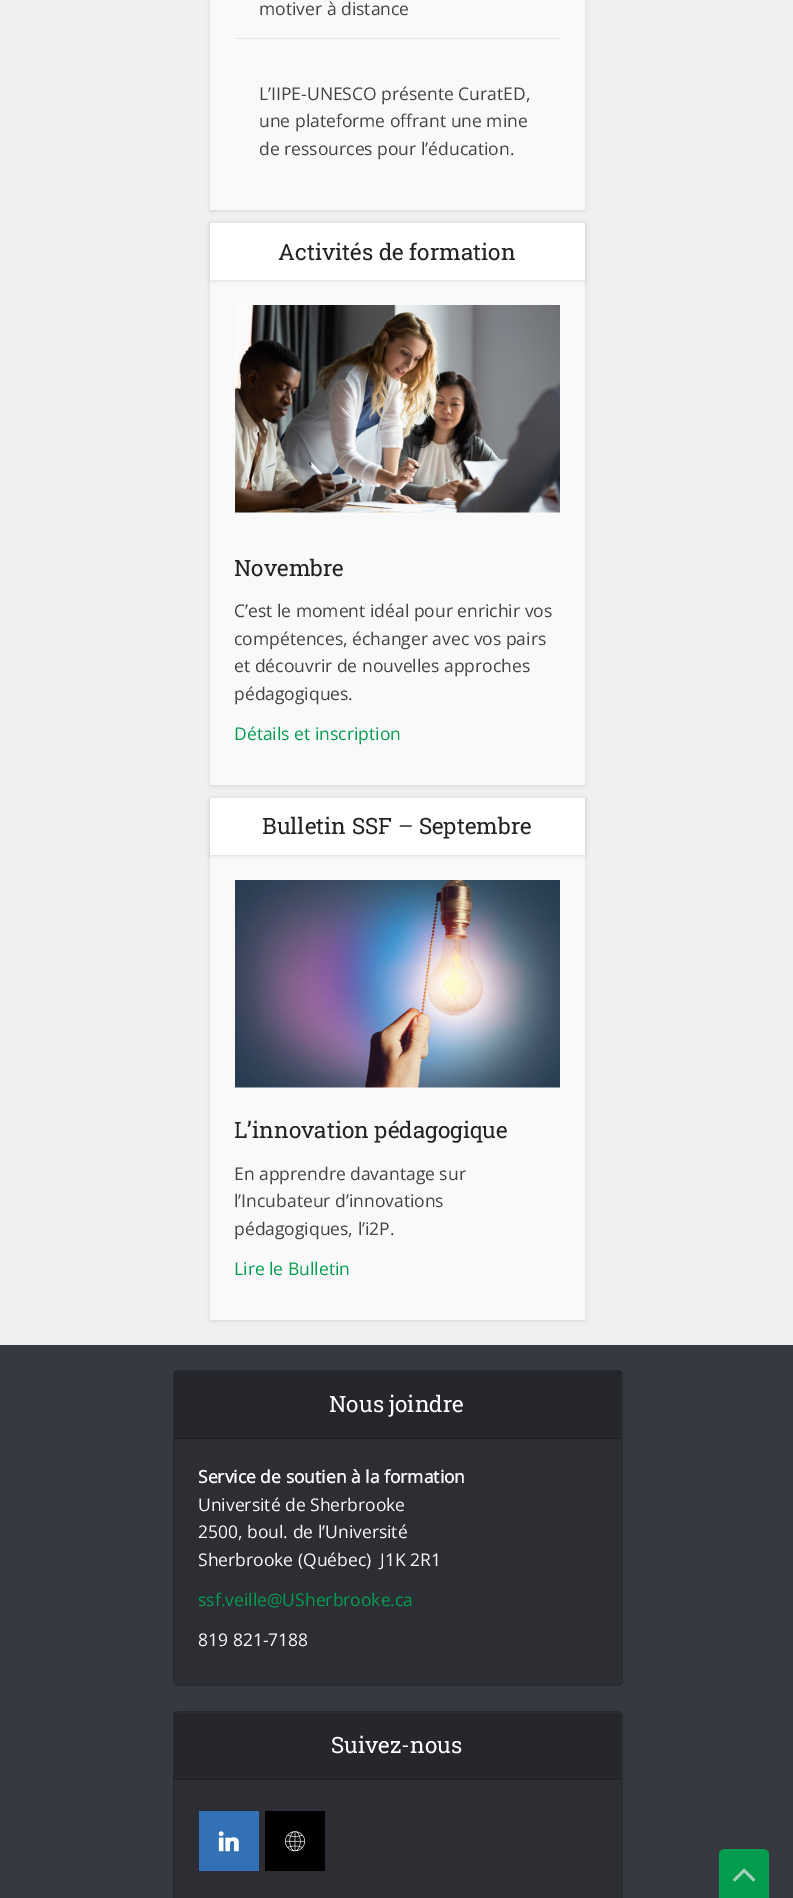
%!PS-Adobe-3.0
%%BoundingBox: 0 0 793 1898
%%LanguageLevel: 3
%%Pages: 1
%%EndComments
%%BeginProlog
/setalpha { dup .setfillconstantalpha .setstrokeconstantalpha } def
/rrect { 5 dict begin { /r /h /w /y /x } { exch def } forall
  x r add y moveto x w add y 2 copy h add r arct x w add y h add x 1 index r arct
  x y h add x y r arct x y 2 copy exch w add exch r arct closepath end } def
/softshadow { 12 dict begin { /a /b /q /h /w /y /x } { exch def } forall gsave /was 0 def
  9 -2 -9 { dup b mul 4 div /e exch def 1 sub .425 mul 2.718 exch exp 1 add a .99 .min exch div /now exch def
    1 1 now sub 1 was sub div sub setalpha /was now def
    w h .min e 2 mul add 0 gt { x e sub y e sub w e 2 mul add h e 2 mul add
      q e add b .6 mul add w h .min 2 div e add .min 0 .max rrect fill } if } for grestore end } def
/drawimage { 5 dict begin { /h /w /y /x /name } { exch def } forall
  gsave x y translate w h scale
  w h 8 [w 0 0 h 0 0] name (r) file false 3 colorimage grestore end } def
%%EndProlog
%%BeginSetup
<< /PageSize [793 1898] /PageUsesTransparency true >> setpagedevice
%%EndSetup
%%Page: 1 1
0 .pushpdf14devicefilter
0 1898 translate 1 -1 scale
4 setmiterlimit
0.941 setgray
0 0 793 1898 rectfill
0 setgray
210 -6 375 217 0 2 0.1 softshadow
0.976 setgray
210 0 375 210 rectfill
0.91 setgray
235 38 325 1 rectfill
0 setgray
210 224 375 562 0 2 0.1 softshadow
0.976 setgray
210 280 375 505 rectfill
0 setgray
210 224 375 57 0 2 0.1 softshadow
1 setgray
210 223 375 57 rectfill
(images/1.raw) 235 305 325 208 drawimage
0 setgray
210 799 375 522 0 2 0.1 softshadow
0.976 setgray
210 855 375 465 rectfill
0 setgray
210 799 375 57 0 2 0.1 softshadow
1 setgray
210 798 375 57 rectfill
(images/2.raw) 235 880 325 208 drawimage
0.216 0.224 0.255 setrgbcolor
0 1345 793 553 rectfill
0.173 0.18 0.204 setrgbcolor
173 1370 450 316 5 rrect fill
0.1 setalpha
0 setgray
173.5 1370.5 449 315 4.5 rrect stroke
0.15 setalpha
174 1371 447 67 rectfill
1 setalpha
0.118 0.122 0.137 setrgbcolor
174 1438 447 1 rectfill
0.173 0.18 0.204 setrgbcolor
173 1711 450 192 5 rrect fill
0.1 setalpha
0 setgray
173.5 1711.5 449 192 4.5 rrect stroke
0.15 setalpha
174 1713 447 66 rectfill
1 setalpha
0.118 0.122 0.137 setrgbcolor
174 1779 447 1 rectfill
0.2 0.443 0.718 setrgbcolor
199 1811 60 60 rectfill
(images/3.raw) 218 1831 21 21 drawimage
0 setgray
265 1811 60 60 rectfill
(images/4.raw) 285 1831 20 21 drawimage
0.016 0.616 0.31 setrgbcolor
newpath 725 1849 moveto 763 1849 lineto 766.5 1849 769 1851.5 769 1855 curveto 769 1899 lineto 719 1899 lineto 719 1855 lineto 719 1851.5 721.5 1849 725 1849 curveto closepath fill
(images/5.raw) 733 1868 23 14 drawimage
/OpenSans-Regular [17.5 0 0 -17.5 0 0] selectfont
0.267 setgray
259 15 moveto (motiver à distance) show
259 100 moveto (L’IIPE-UNESCO présente CuratED,) show
259 127 moveto (une plateforme offrant une mine) show
259 155 moveto (de ressources pour l’éducation.) show
/RobotoSlab-Regular [22.5 0 0 -22.5 0 0] selectfont
0.137 setgray
278 260 moveto (Activités de formation) show
234 576 moveto (Novembre) show
/OpenSans-Regular [17.5 0 0 -17.5 0 0] selectfont
0.267 setgray
234 617 moveto (C’est le moment idéal pour enrichir vos) show
234 645 moveto (compétences, échanger avec vos pairs) show
234 672 moveto (et découvrir de nouvelles approches) show
234 700 moveto (pédagogiques.) show
0.016 0.616 0.31 setrgbcolor
234 740 moveto (Détails et inscription) show
/RobotoSlab-Regular [22.5 0 0 -22.5 0 0] selectfont
0.137 setgray
262 834 moveto (Bulletin SSF – Septembre) show
234 1138 moveto (L’innovation pédagogique) show
/OpenSans-Regular [17.5 0 0 -17.5 0 0] selectfont
0.267 setgray
234 1180 moveto (En apprendre davantage sur) show
234 1207 moveto (l’Incubateur d’innovations) show
234 1235 moveto (pédagogiques, l’i2P.) show
0.016 0.616 0.31 setrgbcolor
234 1275 moveto (Lire le Bulletin) show
/RobotoSlab-Regular [22.5 0 0 -22.5 0 0] selectfont
1 setgray
329 1412 moveto (Nous joindre) show
/OpenSans-Bold [17.5 0 0 -17.5 0 0] selectfont
0.976 setgray
198 1483 moveto (Service de soutien à la formation) show
/OpenSans-Regular [17.5 0 0 -17.5 0 0] selectfont
198 1511 moveto (Université de Sherbrooke) show
198 1538 moveto (2500, boul. de l’Université) show
198 1566 moveto (Sherbrooke \(Québec\)  J1K 2R1) show
0.016 0.616 0.31 setrgbcolor
198 1606 moveto (ssf.veille@USherbrooke.ca) show
0.976 setgray
198 1646 moveto (819 821-7188) show
/RobotoSlab-Regular [22.5 0 0 -22.5 0 0] selectfont
1 setgray
331 1753 moveto (Suivez-nous) show
.poppdf14devicefilter showpage
%%EOF
